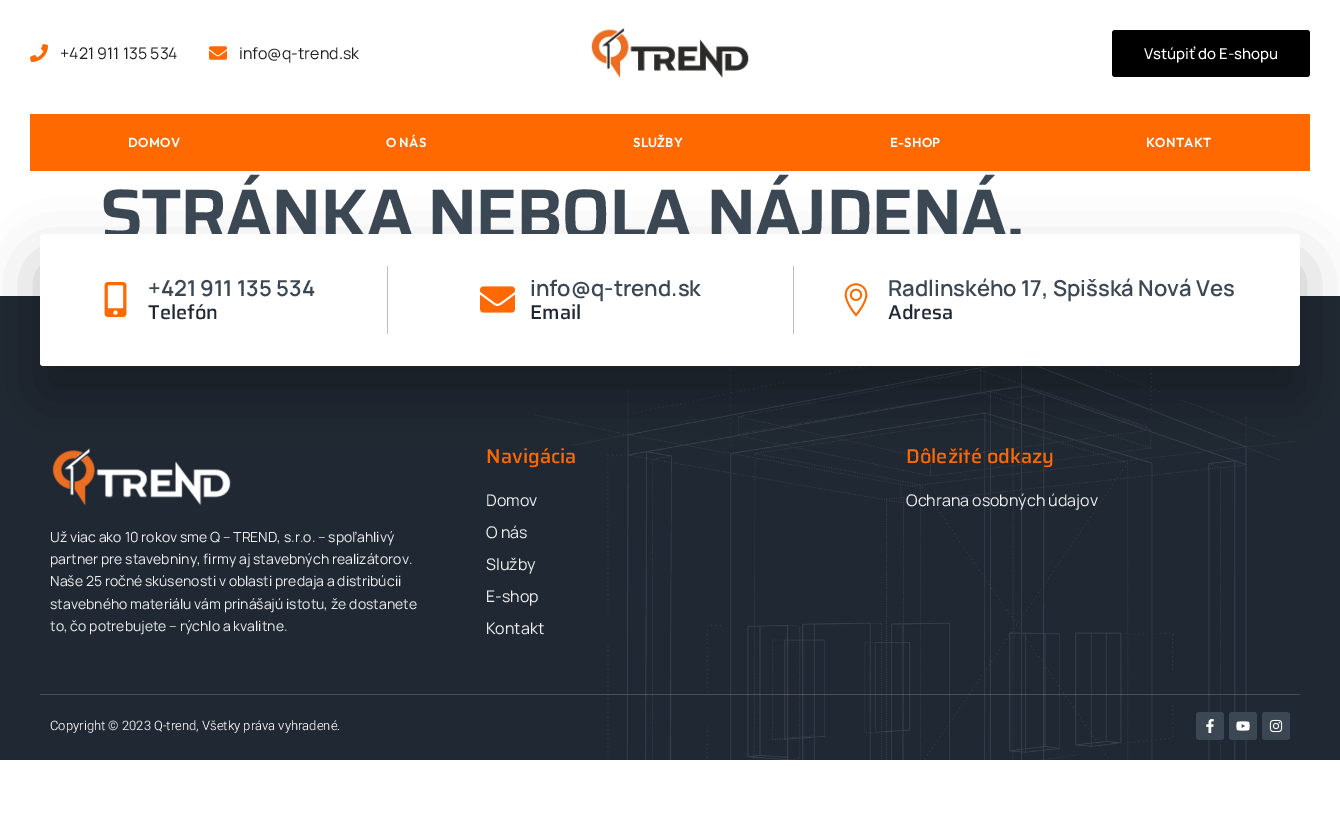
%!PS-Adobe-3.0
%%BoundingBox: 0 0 1340 840
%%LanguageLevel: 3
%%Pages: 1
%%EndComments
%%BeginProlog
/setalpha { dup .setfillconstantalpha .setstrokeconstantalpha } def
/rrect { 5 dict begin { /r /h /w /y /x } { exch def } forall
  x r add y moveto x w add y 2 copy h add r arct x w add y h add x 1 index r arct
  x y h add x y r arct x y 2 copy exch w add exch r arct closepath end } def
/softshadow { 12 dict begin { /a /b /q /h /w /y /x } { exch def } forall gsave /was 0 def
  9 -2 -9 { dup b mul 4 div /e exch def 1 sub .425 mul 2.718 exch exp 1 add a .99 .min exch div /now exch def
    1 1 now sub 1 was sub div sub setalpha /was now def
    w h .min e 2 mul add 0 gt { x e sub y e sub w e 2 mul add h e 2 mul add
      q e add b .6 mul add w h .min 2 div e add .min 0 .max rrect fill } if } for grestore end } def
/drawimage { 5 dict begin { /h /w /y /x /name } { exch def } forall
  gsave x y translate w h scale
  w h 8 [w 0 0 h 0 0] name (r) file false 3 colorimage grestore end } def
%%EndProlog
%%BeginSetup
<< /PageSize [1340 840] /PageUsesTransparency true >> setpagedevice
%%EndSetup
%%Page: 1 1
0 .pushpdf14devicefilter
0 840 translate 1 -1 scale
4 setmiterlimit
1 setgray
0 0 1340 840 rectfill
(images/1.raw) 30 44 18 18 drawimage
(images/2.raw) 209 46 18 14 drawimage
(images/3.raw) 591 28 158 50 drawimage
0 setgray
1112 30 198 47 3 rrect fill
1 0.412 0 setrgbcolor
30 114 1280 57 rectfill
0.125 0.157 0.2 setrgbcolor
0 296 1340 464 rectfill
(images/7.raw) 535 366 761 394 drawimage
(images/8.raw) 52 448 179 58 drawimage
0 setgray
40 264 1260 132 3 30 0.25 softshadow
0.18 setalpha
1 setgray
40 694 1260 1 rectfill
1 setalpha
0.231 0.278 0.325 setrgbcolor
1196 712 28 28 3 rrect fill
(images/9.raw) 1206 719 8 14 drawimage
1229 712 28 28 3 rrect fill
(images/10.raw) 1236 721 14 10 drawimage
1262 712 28 28 3 rrect fill
(images/11.raw) 1269 719 14 14 drawimage
/Manrope-Regular [16 0 0 -16 0 0] selectfont
0.122 0.122 0.129 setrgbcolor
60 59 moveto (+421 911 135 534) show
239 59 moveto (info@q-trend.sk) show
/Manrope-Medium [15 0 0 -15 0 0] selectfont
1 setgray
1144 59 moveto (Vstúpiť do E-shopu) show
/Outfit-SemiBold [13 0 0 -13 0 0] selectfont
128 147 moveto 0.25 0 (DOMOV) ashow
386 147 moveto 0.25 0 (O NÁS) ashow
633 147 moveto 0.25 0 (SLUŽBY) ashow
890 147 moveto 0.25 0 (E-SHOP) ashow
1146 147 moveto 0.25 0 (KONTAKT) ashow
/Saira-SemiBold [70 0 0 -70 0 0] selectfont
0.231 0.278 0.325 setrgbcolor
100 238 moveto -2 0 (STRÁNKA NEBOLA NÁJDENÁ.) ashow
1 setgray
40 234 1260 132 3 rrect fill
(images/4.raw) 104 282 23 35 drawimage
/Manrope-SemiBold [22 0 0 -22 0 0] selectfont
0.231 0.278 0.325 setrgbcolor
148 296 moveto (+421 911 135 534) show
/Saira-Medium [20 0 0 -20 0 0] selectfont
0.125 0.157 0.2 setrgbcolor
148 319 moveto (Telefón) show
0.741 setgray
793 266 1 68 rectfill
387 266 1 68 rectfill
(images/5.raw) 480 286 35 27 drawimage
/Manrope-SemiBold [22 0 0 -22 0 0] selectfont
0.231 0.278 0.325 setrgbcolor
530 296 moveto (info@q-trend.sk) show
/Saira-Medium [20 0 0 -20 0 0] selectfont
0.125 0.157 0.2 setrgbcolor
530 319 moveto (Email) show
(images/6.raw) 844 283 24 34 drawimage
/Manrope-SemiBold [22 0 0 -22 0 0] selectfont
0.231 0.278 0.325 setrgbcolor
888 296 moveto (Radlinského 17, Spišská Nová Ves) show
/Saira-Medium [20 0 0 -20 0 0] selectfont
0.125 0.157 0.2 setrgbcolor
888 319 moveto (Adresa) show
1 0.412 0 setrgbcolor
486 463 moveto (Navigácia) show
/Manrope-Regular [16 0 0 -16 0 0] selectfont
0.937 setgray
486 506 moveto (Domov) show
486 538 moveto (O nás) show
486 570 moveto (Služby) show
486 602 moveto (E-shop) show
486 634 moveto (Kontakt) show
/Saira-Medium [20 0 0 -20 0 0] selectfont
1 0.412 0 setrgbcolor
906 463 moveto (Dôležité odkazy) show
/Manrope-Regular [16 0 0 -16 0 0] selectfont
0.937 setgray
906 506 moveto (Ochrana osobných údajov) show
/Manrope-Regular [14 0 0 -14 0 0] selectfont
50 542 moveto (Už viac ako 10 rokov sme Q – TREND, s.r.o. – spoľahlivý) show
50 564 moveto (partner pre stavebniny, firmy aj stavebných realizátorov.) show
50 586 moveto (Naše 25 ročné skúsenosti v oblasti predaja a distribúcii) show
50 609 moveto (stavebného materiálu vám prinášajú istotu, že dostanete) show
50 631 moveto (to, čo potrebujete – rýchlo a kvalitne.) show
/Heebo-Light [13 0 0 -13 0 0] selectfont
1 setgray
50 730 moveto (Copyright © 2023 Q-trend, Všetky práva vyhradené.) show
.poppdf14devicefilter showpage
%%EOF
